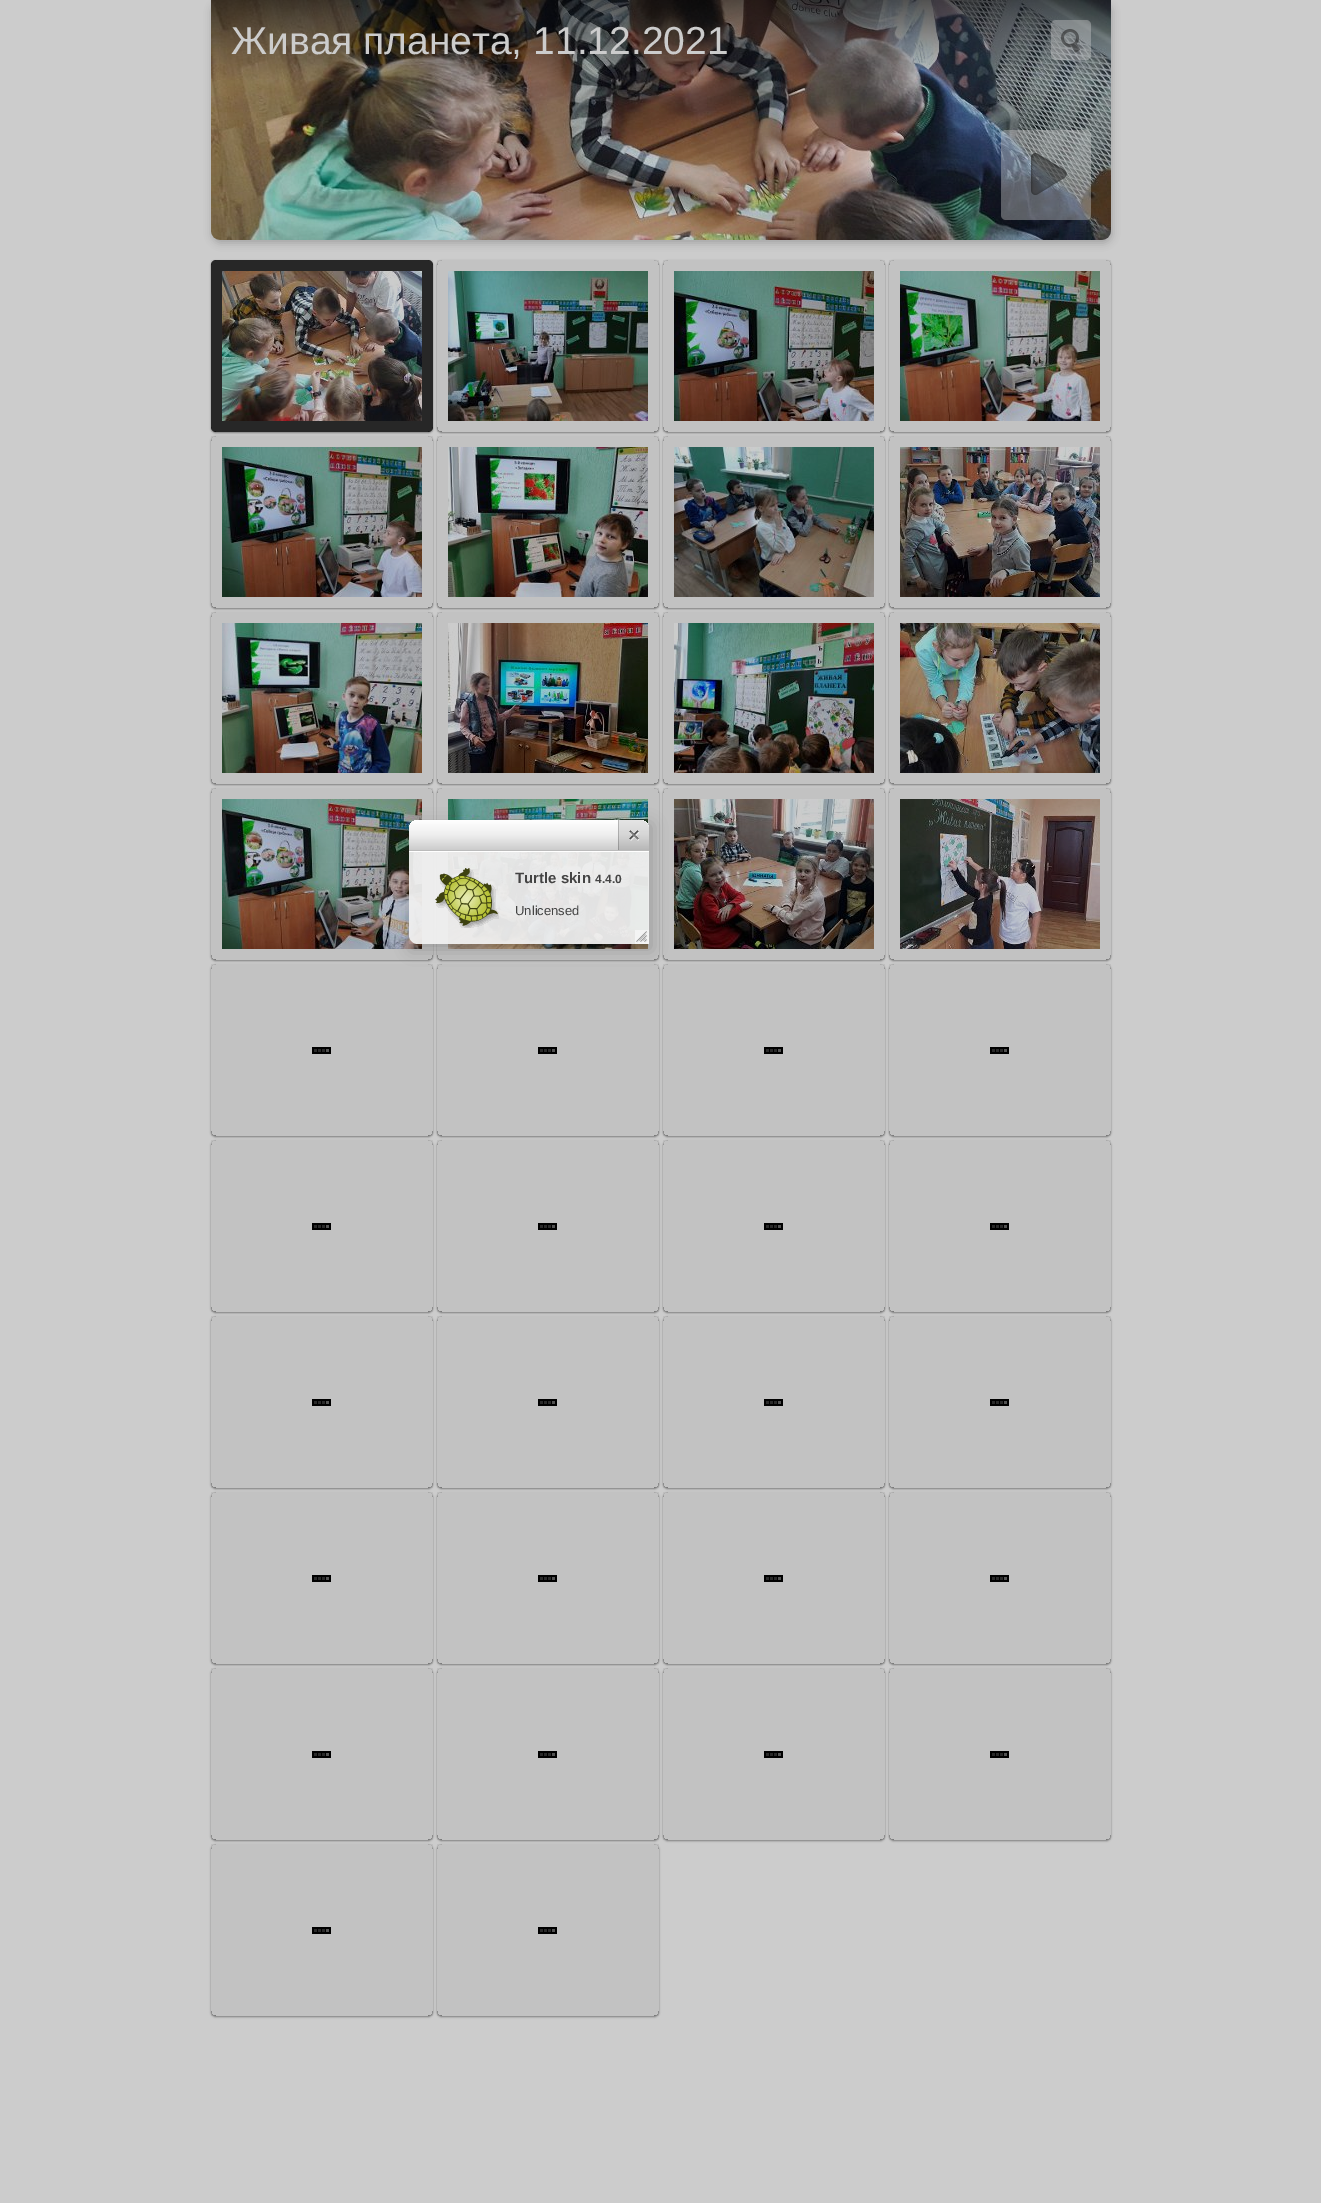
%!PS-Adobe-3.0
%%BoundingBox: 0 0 1321 2203
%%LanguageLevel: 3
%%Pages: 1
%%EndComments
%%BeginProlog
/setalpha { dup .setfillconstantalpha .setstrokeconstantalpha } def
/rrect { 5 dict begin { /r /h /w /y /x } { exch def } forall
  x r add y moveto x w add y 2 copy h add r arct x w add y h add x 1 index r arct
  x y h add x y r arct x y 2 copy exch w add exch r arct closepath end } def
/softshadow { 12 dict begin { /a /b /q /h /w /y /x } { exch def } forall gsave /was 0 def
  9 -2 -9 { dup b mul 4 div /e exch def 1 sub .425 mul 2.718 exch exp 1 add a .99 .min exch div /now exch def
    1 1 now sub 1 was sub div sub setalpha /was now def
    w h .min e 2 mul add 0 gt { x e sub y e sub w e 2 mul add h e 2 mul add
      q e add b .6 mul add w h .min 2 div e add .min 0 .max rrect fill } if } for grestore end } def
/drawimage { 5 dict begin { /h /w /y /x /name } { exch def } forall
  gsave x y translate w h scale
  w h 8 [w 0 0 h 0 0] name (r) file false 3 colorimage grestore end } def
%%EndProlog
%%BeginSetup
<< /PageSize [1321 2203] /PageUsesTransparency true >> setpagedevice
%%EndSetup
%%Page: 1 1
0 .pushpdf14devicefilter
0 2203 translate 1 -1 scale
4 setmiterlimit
0.8 setgray
0 0 1321 2203 rectfill
0 setgray
212 3 900 240 9 4 0.2 softshadow
0.2 setalpha
newpath 211 0 moveto 1111 0 lineto 1111 231 lineto 1111 236 1107 240 1102 240 curveto 220 240 lineto 215 240 211 236 211 231 curveto closepath fill
1 setalpha
(images/1.raw) 211 0 900 240 drawimage
0.4 setalpha
0.8 setgray
1051 20 40 40 5 rrect fill
1 setalpha
(images/2.raw) 1061 29 19 24 drawimage
0.4 setalpha
1001 130 90 90 5 rrect fill
1 setalpha
(images/3.raw) 1031 153 36 42 drawimage
gsave
newpath 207 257 moveto 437 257 lineto 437 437 lineto 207 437 lineto closepath 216 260 moveto 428 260 lineto 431 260 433 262 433 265 curveto 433 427 lineto 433 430 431 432 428 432 curveto 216 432 lineto 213 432 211 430 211 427 curveto 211 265 lineto 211 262 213 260 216 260 curveto closepath eoclip newpath
0 setgray
211 261 222 172 5 1 0.4 softshadow
grestore
0.05 setalpha
0 setgray
211 260 222 172 rectfill
0.8 setalpha
211 260 222 172 5 rrect fill
1 setalpha
(images/4.raw) 222 271 200 150 drawimage
gsave
newpath 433 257 moveto 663 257 lineto 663 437 lineto 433 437 lineto closepath 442 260 moveto 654 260 lineto 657 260 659 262 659 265 curveto 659 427 lineto 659 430 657 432 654 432 curveto 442 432 lineto 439 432 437 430 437 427 curveto 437 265 lineto 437 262 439 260 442 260 curveto closepath eoclip newpath
437 261 222 172 5 1 0.4 softshadow
grestore
0.05 setalpha
437 260 222 172 rectfill
1 setalpha
(images/5.raw) 448 271 200 150 drawimage
gsave
newpath 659 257 moveto 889 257 lineto 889 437 lineto 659 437 lineto closepath 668 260 moveto 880 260 lineto 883 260 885 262 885 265 curveto 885 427 lineto 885 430 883 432 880 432 curveto 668 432 lineto 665 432 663 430 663 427 curveto 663 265 lineto 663 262 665 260 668 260 curveto closepath eoclip newpath
663 261 222 172 5 1 0.4 softshadow
grestore
0.05 setalpha
663 260 222 172 rectfill
1 setalpha
(images/6.raw) 674 271 200 150 drawimage
gsave
newpath 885 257 moveto 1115 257 lineto 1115 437 lineto 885 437 lineto closepath 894 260 moveto 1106 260 lineto 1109 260 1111 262 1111 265 curveto 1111 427 lineto 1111 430 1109 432 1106 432 curveto 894 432 lineto 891 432 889 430 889 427 curveto 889 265 lineto 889 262 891 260 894 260 curveto closepath eoclip newpath
889 261 222 172 5 1 0.4 softshadow
grestore
0.05 setalpha
889 260 222 172 rectfill
1 setalpha
(images/7.raw) 900 271 200 150 drawimage
gsave
newpath 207 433 moveto 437 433 lineto 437 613 lineto 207 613 lineto closepath 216 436 moveto 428 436 lineto 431 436 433 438 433 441 curveto 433 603 lineto 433 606 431 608 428 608 curveto 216 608 lineto 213 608 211 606 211 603 curveto 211 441 lineto 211 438 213 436 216 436 curveto closepath eoclip newpath
211 437 222 172 5 1 0.4 softshadow
grestore
0.05 setalpha
211 436 222 172 rectfill
1 setalpha
(images/8.raw) 222 447 200 150 drawimage
gsave
newpath 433 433 moveto 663 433 lineto 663 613 lineto 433 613 lineto closepath 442 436 moveto 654 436 lineto 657 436 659 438 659 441 curveto 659 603 lineto 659 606 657 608 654 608 curveto 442 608 lineto 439 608 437 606 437 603 curveto 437 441 lineto 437 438 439 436 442 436 curveto closepath eoclip newpath
437 437 222 172 5 1 0.4 softshadow
grestore
0.05 setalpha
437 436 222 172 rectfill
1 setalpha
(images/9.raw) 448 447 200 150 drawimage
gsave
newpath 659 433 moveto 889 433 lineto 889 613 lineto 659 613 lineto closepath 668 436 moveto 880 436 lineto 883 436 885 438 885 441 curveto 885 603 lineto 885 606 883 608 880 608 curveto 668 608 lineto 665 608 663 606 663 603 curveto 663 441 lineto 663 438 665 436 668 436 curveto closepath eoclip newpath
663 437 222 172 5 1 0.4 softshadow
grestore
0.05 setalpha
663 436 222 172 rectfill
1 setalpha
(images/10.raw) 674 447 200 150 drawimage
gsave
newpath 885 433 moveto 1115 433 lineto 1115 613 lineto 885 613 lineto closepath 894 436 moveto 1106 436 lineto 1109 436 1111 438 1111 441 curveto 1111 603 lineto 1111 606 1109 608 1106 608 curveto 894 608 lineto 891 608 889 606 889 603 curveto 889 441 lineto 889 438 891 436 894 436 curveto closepath eoclip newpath
889 437 222 172 5 1 0.4 softshadow
grestore
0.05 setalpha
889 436 222 172 rectfill
1 setalpha
(images/11.raw) 900 447 200 150 drawimage
gsave
newpath 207 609 moveto 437 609 lineto 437 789 lineto 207 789 lineto closepath 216 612 moveto 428 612 lineto 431 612 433 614 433 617 curveto 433 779 lineto 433 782 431 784 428 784 curveto 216 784 lineto 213 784 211 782 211 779 curveto 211 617 lineto 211 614 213 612 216 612 curveto closepath eoclip newpath
211 613 222 172 5 1 0.4 softshadow
grestore
0.05 setalpha
211 612 222 172 rectfill
1 setalpha
(images/12.raw) 222 623 200 150 drawimage
gsave
newpath 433 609 moveto 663 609 lineto 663 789 lineto 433 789 lineto closepath 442 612 moveto 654 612 lineto 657 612 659 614 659 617 curveto 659 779 lineto 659 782 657 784 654 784 curveto 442 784 lineto 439 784 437 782 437 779 curveto 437 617 lineto 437 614 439 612 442 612 curveto closepath eoclip newpath
437 613 222 172 5 1 0.4 softshadow
grestore
0.05 setalpha
437 612 222 172 rectfill
1 setalpha
(images/13.raw) 448 623 200 150 drawimage
gsave
newpath 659 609 moveto 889 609 lineto 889 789 lineto 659 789 lineto closepath 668 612 moveto 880 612 lineto 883 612 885 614 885 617 curveto 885 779 lineto 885 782 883 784 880 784 curveto 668 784 lineto 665 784 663 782 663 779 curveto 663 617 lineto 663 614 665 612 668 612 curveto closepath eoclip newpath
663 613 222 172 5 1 0.4 softshadow
grestore
0.05 setalpha
663 612 222 172 rectfill
1 setalpha
(images/14.raw) 674 623 200 150 drawimage
gsave
newpath 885 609 moveto 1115 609 lineto 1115 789 lineto 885 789 lineto closepath 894 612 moveto 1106 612 lineto 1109 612 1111 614 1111 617 curveto 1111 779 lineto 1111 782 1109 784 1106 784 curveto 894 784 lineto 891 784 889 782 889 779 curveto 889 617 lineto 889 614 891 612 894 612 curveto closepath eoclip newpath
889 613 222 172 5 1 0.4 softshadow
grestore
0.05 setalpha
889 612 222 172 rectfill
1 setalpha
(images/15.raw) 900 623 200 150 drawimage
gsave
newpath 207 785 moveto 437 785 lineto 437 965 lineto 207 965 lineto closepath 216 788 moveto 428 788 lineto 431 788 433 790 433 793 curveto 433 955 lineto 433 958 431 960 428 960 curveto 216 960 lineto 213 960 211 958 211 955 curveto 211 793 lineto 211 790 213 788 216 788 curveto closepath eoclip newpath
211 789 222 172 5 1 0.4 softshadow
grestore
0.05 setalpha
211 788 222 172 rectfill
1 setalpha
(images/16.raw) 222 799 200 150 drawimage
gsave
newpath 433 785 moveto 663 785 lineto 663 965 lineto 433 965 lineto closepath 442 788 moveto 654 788 lineto 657 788 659 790 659 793 curveto 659 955 lineto 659 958 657 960 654 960 curveto 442 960 lineto 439 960 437 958 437 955 curveto 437 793 lineto 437 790 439 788 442 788 curveto closepath eoclip newpath
437 789 222 172 5 1 0.4 softshadow
grestore
0.05 setalpha
437 788 222 172 rectfill
1 setalpha
(images/17.raw) 448 799 200 150 drawimage
gsave
newpath 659 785 moveto 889 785 lineto 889 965 lineto 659 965 lineto closepath 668 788 moveto 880 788 lineto 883 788 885 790 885 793 curveto 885 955 lineto 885 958 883 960 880 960 curveto 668 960 lineto 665 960 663 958 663 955 curveto 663 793 lineto 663 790 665 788 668 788 curveto closepath eoclip newpath
663 789 222 172 5 1 0.4 softshadow
grestore
0.05 setalpha
663 788 222 172 rectfill
1 setalpha
(images/18.raw) 674 799 200 150 drawimage
gsave
newpath 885 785 moveto 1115 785 lineto 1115 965 lineto 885 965 lineto closepath 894 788 moveto 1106 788 lineto 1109 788 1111 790 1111 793 curveto 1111 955 lineto 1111 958 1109 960 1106 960 curveto 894 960 lineto 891 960 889 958 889 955 curveto 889 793 lineto 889 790 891 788 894 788 curveto closepath eoclip newpath
889 789 222 172 5 1 0.4 softshadow
grestore
0.05 setalpha
889 788 222 172 rectfill
1 setalpha
(images/19.raw) 900 799 200 150 drawimage
gsave
newpath 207 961 moveto 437 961 lineto 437 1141 lineto 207 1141 lineto closepath 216 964 moveto 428 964 lineto 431 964 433 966 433 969 curveto 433 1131 lineto 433 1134 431 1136 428 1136 curveto 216 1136 lineto 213 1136 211 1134 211 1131 curveto 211 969 lineto 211 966 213 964 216 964 curveto closepath eoclip newpath
211 965 222 172 5 1 0.4 softshadow
grestore
0.05 setalpha
211 964 222 172 rectfill
1 setalpha
(images/20.raw) 312 1047 19 7 drawimage
gsave
newpath 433 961 moveto 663 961 lineto 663 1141 lineto 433 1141 lineto closepath 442 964 moveto 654 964 lineto 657 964 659 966 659 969 curveto 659 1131 lineto 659 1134 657 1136 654 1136 curveto 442 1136 lineto 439 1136 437 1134 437 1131 curveto 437 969 lineto 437 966 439 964 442 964 curveto closepath eoclip newpath
437 965 222 172 5 1 0.4 softshadow
grestore
0.05 setalpha
437 964 222 172 rectfill
1 setalpha
(images/20.raw) 538 1047 19 7 drawimage
gsave
newpath 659 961 moveto 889 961 lineto 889 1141 lineto 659 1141 lineto closepath 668 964 moveto 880 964 lineto 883 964 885 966 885 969 curveto 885 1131 lineto 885 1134 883 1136 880 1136 curveto 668 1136 lineto 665 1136 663 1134 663 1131 curveto 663 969 lineto 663 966 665 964 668 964 curveto closepath eoclip newpath
663 965 222 172 5 1 0.4 softshadow
grestore
0.05 setalpha
663 964 222 172 rectfill
1 setalpha
(images/20.raw) 764 1047 19 7 drawimage
gsave
newpath 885 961 moveto 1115 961 lineto 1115 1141 lineto 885 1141 lineto closepath 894 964 moveto 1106 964 lineto 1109 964 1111 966 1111 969 curveto 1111 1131 lineto 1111 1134 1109 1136 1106 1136 curveto 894 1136 lineto 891 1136 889 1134 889 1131 curveto 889 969 lineto 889 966 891 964 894 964 curveto closepath eoclip newpath
889 965 222 172 5 1 0.4 softshadow
grestore
0.05 setalpha
889 964 222 172 rectfill
1 setalpha
(images/20.raw) 990 1047 19 7 drawimage
gsave
newpath 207 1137 moveto 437 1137 lineto 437 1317 lineto 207 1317 lineto closepath 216 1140 moveto 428 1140 lineto 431 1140 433 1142 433 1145 curveto 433 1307 lineto 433 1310 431 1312 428 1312 curveto 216 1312 lineto 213 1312 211 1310 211 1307 curveto 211 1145 lineto 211 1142 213 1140 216 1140 curveto closepath eoclip newpath
211 1141 222 172 5 1 0.4 softshadow
grestore
0.05 setalpha
211 1140 222 172 rectfill
1 setalpha
(images/20.raw) 312 1223 19 7 drawimage
gsave
newpath 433 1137 moveto 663 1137 lineto 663 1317 lineto 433 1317 lineto closepath 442 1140 moveto 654 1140 lineto 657 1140 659 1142 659 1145 curveto 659 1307 lineto 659 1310 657 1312 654 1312 curveto 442 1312 lineto 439 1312 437 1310 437 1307 curveto 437 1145 lineto 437 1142 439 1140 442 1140 curveto closepath eoclip newpath
437 1141 222 172 5 1 0.4 softshadow
grestore
0.05 setalpha
437 1140 222 172 rectfill
1 setalpha
(images/20.raw) 538 1223 19 7 drawimage
gsave
newpath 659 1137 moveto 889 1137 lineto 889 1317 lineto 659 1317 lineto closepath 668 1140 moveto 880 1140 lineto 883 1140 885 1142 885 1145 curveto 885 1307 lineto 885 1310 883 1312 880 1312 curveto 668 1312 lineto 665 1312 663 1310 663 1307 curveto 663 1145 lineto 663 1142 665 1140 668 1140 curveto closepath eoclip newpath
663 1141 222 172 5 1 0.4 softshadow
grestore
0.05 setalpha
663 1140 222 172 rectfill
1 setalpha
(images/20.raw) 764 1223 19 7 drawimage
gsave
newpath 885 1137 moveto 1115 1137 lineto 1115 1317 lineto 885 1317 lineto closepath 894 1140 moveto 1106 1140 lineto 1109 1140 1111 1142 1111 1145 curveto 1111 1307 lineto 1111 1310 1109 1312 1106 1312 curveto 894 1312 lineto 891 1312 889 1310 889 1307 curveto 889 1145 lineto 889 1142 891 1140 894 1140 curveto closepath eoclip newpath
889 1141 222 172 5 1 0.4 softshadow
grestore
0.05 setalpha
889 1140 222 172 rectfill
1 setalpha
(images/20.raw) 990 1223 19 7 drawimage
gsave
newpath 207 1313 moveto 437 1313 lineto 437 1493 lineto 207 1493 lineto closepath 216 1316 moveto 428 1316 lineto 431 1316 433 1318 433 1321 curveto 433 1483 lineto 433 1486 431 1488 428 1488 curveto 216 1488 lineto 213 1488 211 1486 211 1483 curveto 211 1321 lineto 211 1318 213 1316 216 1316 curveto closepath eoclip newpath
211 1317 222 172 5 1 0.4 softshadow
grestore
0.05 setalpha
211 1316 222 172 rectfill
1 setalpha
(images/20.raw) 312 1399 19 7 drawimage
gsave
newpath 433 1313 moveto 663 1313 lineto 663 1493 lineto 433 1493 lineto closepath 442 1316 moveto 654 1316 lineto 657 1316 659 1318 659 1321 curveto 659 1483 lineto 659 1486 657 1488 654 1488 curveto 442 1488 lineto 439 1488 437 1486 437 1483 curveto 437 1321 lineto 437 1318 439 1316 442 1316 curveto closepath eoclip newpath
437 1317 222 172 5 1 0.4 softshadow
grestore
0.05 setalpha
437 1316 222 172 rectfill
1 setalpha
(images/20.raw) 538 1399 19 7 drawimage
gsave
newpath 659 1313 moveto 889 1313 lineto 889 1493 lineto 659 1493 lineto closepath 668 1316 moveto 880 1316 lineto 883 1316 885 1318 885 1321 curveto 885 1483 lineto 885 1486 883 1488 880 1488 curveto 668 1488 lineto 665 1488 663 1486 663 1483 curveto 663 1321 lineto 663 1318 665 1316 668 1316 curveto closepath eoclip newpath
663 1317 222 172 5 1 0.4 softshadow
grestore
0.05 setalpha
663 1316 222 172 rectfill
1 setalpha
(images/20.raw) 764 1399 19 7 drawimage
gsave
newpath 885 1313 moveto 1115 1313 lineto 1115 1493 lineto 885 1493 lineto closepath 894 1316 moveto 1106 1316 lineto 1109 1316 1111 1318 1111 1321 curveto 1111 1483 lineto 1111 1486 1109 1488 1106 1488 curveto 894 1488 lineto 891 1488 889 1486 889 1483 curveto 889 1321 lineto 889 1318 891 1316 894 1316 curveto closepath eoclip newpath
889 1317 222 172 5 1 0.4 softshadow
grestore
0.05 setalpha
889 1316 222 172 rectfill
1 setalpha
(images/20.raw) 990 1399 19 7 drawimage
gsave
newpath 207 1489 moveto 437 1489 lineto 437 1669 lineto 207 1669 lineto closepath 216 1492 moveto 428 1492 lineto 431 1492 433 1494 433 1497 curveto 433 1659 lineto 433 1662 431 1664 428 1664 curveto 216 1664 lineto 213 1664 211 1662 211 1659 curveto 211 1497 lineto 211 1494 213 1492 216 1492 curveto closepath eoclip newpath
211 1493 222 172 5 1 0.4 softshadow
grestore
0.05 setalpha
211 1492 222 172 rectfill
1 setalpha
(images/20.raw) 312 1575 19 7 drawimage
gsave
newpath 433 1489 moveto 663 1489 lineto 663 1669 lineto 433 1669 lineto closepath 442 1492 moveto 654 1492 lineto 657 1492 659 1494 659 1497 curveto 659 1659 lineto 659 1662 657 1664 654 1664 curveto 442 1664 lineto 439 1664 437 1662 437 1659 curveto 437 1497 lineto 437 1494 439 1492 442 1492 curveto closepath eoclip newpath
437 1493 222 172 5 1 0.4 softshadow
grestore
0.05 setalpha
437 1492 222 172 rectfill
1 setalpha
(images/20.raw) 538 1575 19 7 drawimage
gsave
newpath 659 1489 moveto 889 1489 lineto 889 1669 lineto 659 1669 lineto closepath 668 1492 moveto 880 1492 lineto 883 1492 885 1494 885 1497 curveto 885 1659 lineto 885 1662 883 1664 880 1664 curveto 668 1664 lineto 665 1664 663 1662 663 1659 curveto 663 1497 lineto 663 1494 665 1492 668 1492 curveto closepath eoclip newpath
663 1493 222 172 5 1 0.4 softshadow
grestore
0.05 setalpha
663 1492 222 172 rectfill
1 setalpha
(images/20.raw) 764 1575 19 7 drawimage
gsave
newpath 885 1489 moveto 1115 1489 lineto 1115 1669 lineto 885 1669 lineto closepath 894 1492 moveto 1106 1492 lineto 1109 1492 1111 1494 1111 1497 curveto 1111 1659 lineto 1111 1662 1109 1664 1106 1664 curveto 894 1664 lineto 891 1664 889 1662 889 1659 curveto 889 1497 lineto 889 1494 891 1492 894 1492 curveto closepath eoclip newpath
889 1493 222 172 5 1 0.4 softshadow
grestore
0.05 setalpha
889 1492 222 172 rectfill
1 setalpha
(images/20.raw) 990 1575 19 7 drawimage
gsave
newpath 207 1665 moveto 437 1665 lineto 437 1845 lineto 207 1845 lineto closepath 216 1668 moveto 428 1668 lineto 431 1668 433 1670 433 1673 curveto 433 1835 lineto 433 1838 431 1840 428 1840 curveto 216 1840 lineto 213 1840 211 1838 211 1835 curveto 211 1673 lineto 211 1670 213 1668 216 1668 curveto closepath eoclip newpath
211 1669 222 172 5 1 0.4 softshadow
grestore
0.05 setalpha
211 1668 222 172 rectfill
1 setalpha
(images/20.raw) 312 1751 19 7 drawimage
gsave
newpath 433 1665 moveto 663 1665 lineto 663 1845 lineto 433 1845 lineto closepath 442 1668 moveto 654 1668 lineto 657 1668 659 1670 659 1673 curveto 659 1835 lineto 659 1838 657 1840 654 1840 curveto 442 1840 lineto 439 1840 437 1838 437 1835 curveto 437 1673 lineto 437 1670 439 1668 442 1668 curveto closepath eoclip newpath
437 1669 222 172 5 1 0.4 softshadow
grestore
0.05 setalpha
437 1668 222 172 rectfill
1 setalpha
(images/20.raw) 538 1751 19 7 drawimage
gsave
newpath 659 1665 moveto 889 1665 lineto 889 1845 lineto 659 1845 lineto closepath 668 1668 moveto 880 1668 lineto 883 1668 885 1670 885 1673 curveto 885 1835 lineto 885 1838 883 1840 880 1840 curveto 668 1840 lineto 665 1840 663 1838 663 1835 curveto 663 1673 lineto 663 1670 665 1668 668 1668 curveto closepath eoclip newpath
663 1669 222 172 5 1 0.4 softshadow
grestore
0.05 setalpha
663 1668 222 172 rectfill
1 setalpha
(images/20.raw) 764 1751 19 7 drawimage
gsave
newpath 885 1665 moveto 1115 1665 lineto 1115 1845 lineto 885 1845 lineto closepath 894 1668 moveto 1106 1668 lineto 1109 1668 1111 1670 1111 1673 curveto 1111 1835 lineto 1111 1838 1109 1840 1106 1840 curveto 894 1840 lineto 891 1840 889 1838 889 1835 curveto 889 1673 lineto 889 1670 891 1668 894 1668 curveto closepath eoclip newpath
889 1669 222 172 5 1 0.4 softshadow
grestore
0.05 setalpha
889 1668 222 172 rectfill
1 setalpha
(images/20.raw) 990 1751 19 7 drawimage
gsave
newpath 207 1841 moveto 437 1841 lineto 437 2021 lineto 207 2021 lineto closepath 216 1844 moveto 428 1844 lineto 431 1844 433 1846 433 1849 curveto 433 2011 lineto 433 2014 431 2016 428 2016 curveto 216 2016 lineto 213 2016 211 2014 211 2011 curveto 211 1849 lineto 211 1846 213 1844 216 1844 curveto closepath eoclip newpath
211 1845 222 172 5 1 0.4 softshadow
grestore
0.05 setalpha
211 1844 222 172 rectfill
1 setalpha
(images/20.raw) 312 1927 19 7 drawimage
gsave
newpath 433 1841 moveto 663 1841 lineto 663 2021 lineto 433 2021 lineto closepath 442 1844 moveto 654 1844 lineto 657 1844 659 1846 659 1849 curveto 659 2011 lineto 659 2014 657 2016 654 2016 curveto 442 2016 lineto 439 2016 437 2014 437 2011 curveto 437 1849 lineto 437 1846 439 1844 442 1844 curveto closepath eoclip newpath
437 1845 222 172 5 1 0.4 softshadow
grestore
0.05 setalpha
437 1844 222 172 rectfill
1 setalpha
(images/20.raw) 538 1927 19 7 drawimage
gsave
newpath 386 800 moveto 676 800 lineto 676 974 lineto 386 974 lineto closepath 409 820 moveto 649 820 lineto 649 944 lineto 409 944 lineto closepath eoclip newpath
411 825 240 124 0 8 0.2 softshadow
grestore
gsave newpath 418 820 moveto 640 820 lineto 645 820 649 824 649 829 curveto 649 850 lineto 409 850 lineto 409 829 lineto 409 824 413 820 418 820 curveto closepath clip newpath
<< /ShadingType 2 /ColorSpace /DeviceRGB /Coords [529 820 529 850] /Extend [true true] /Function << /FunctionType 3 /Domain [0 1] /Functions [<< /FunctionType 2 /Domain [0 1] /C0 [1 1 1] /C1 [0.933 0.933 0.933] /N 1 >> << /FunctionType 2 /Domain [0 1] /C0 [0.91 0.91 0.91] /C1 [0.8 0.8 0.8] /N 1 >>] /Bounds [0.5] /Encode [0 1 0 1] >> >> shfill grestore
0.733 setgray
409 850 240 1 rectfill
0.1 setalpha
0 setgray
newpath 618 820 moveto 640 820 lineto 645 820 649 824 649 829 curveto 649 850 lineto 618 850 lineto closepath fill
1 setalpha
(images/21.raw) 629 830 11 11 drawimage
0.2 setalpha
618 820 1 30 rectfill
0.94 setalpha
0.941 setgray
newpath 409 851 moveto 649 851 lineto 649 935 lineto 649 940 645 944 640 944 curveto 418 944 lineto 413 944 409 940 409 935 curveto closepath fill
1 setalpha
1 setgray
409 851 240 1 rectfill
(images/22.raw) 435 868 64 60 drawimage
0.957 setgray
635 930 14 14 rectfill
(images/23.raw) 636 931 12 12 drawimage
/LiberationSans-Regular [39 0 0 -39 0 0] selectfont
0.8 setgray
231 54 moveto (Живая планета, 11.12.2021) show
/LiberationSans-Bold [15 0 0 -15 0 0] selectfont
0.267 setgray
515 883 moveto (Turtle skin) show
/LiberationSans-Bold [12 0 0 -12 0 0] selectfont
595 883 moveto (4.4.0) show
/LiberationSans-Regular [13 0 0 -13 0 0] selectfont
515 915 moveto (Unlicensed) show
.poppdf14devicefilter showpage
%%EOF
